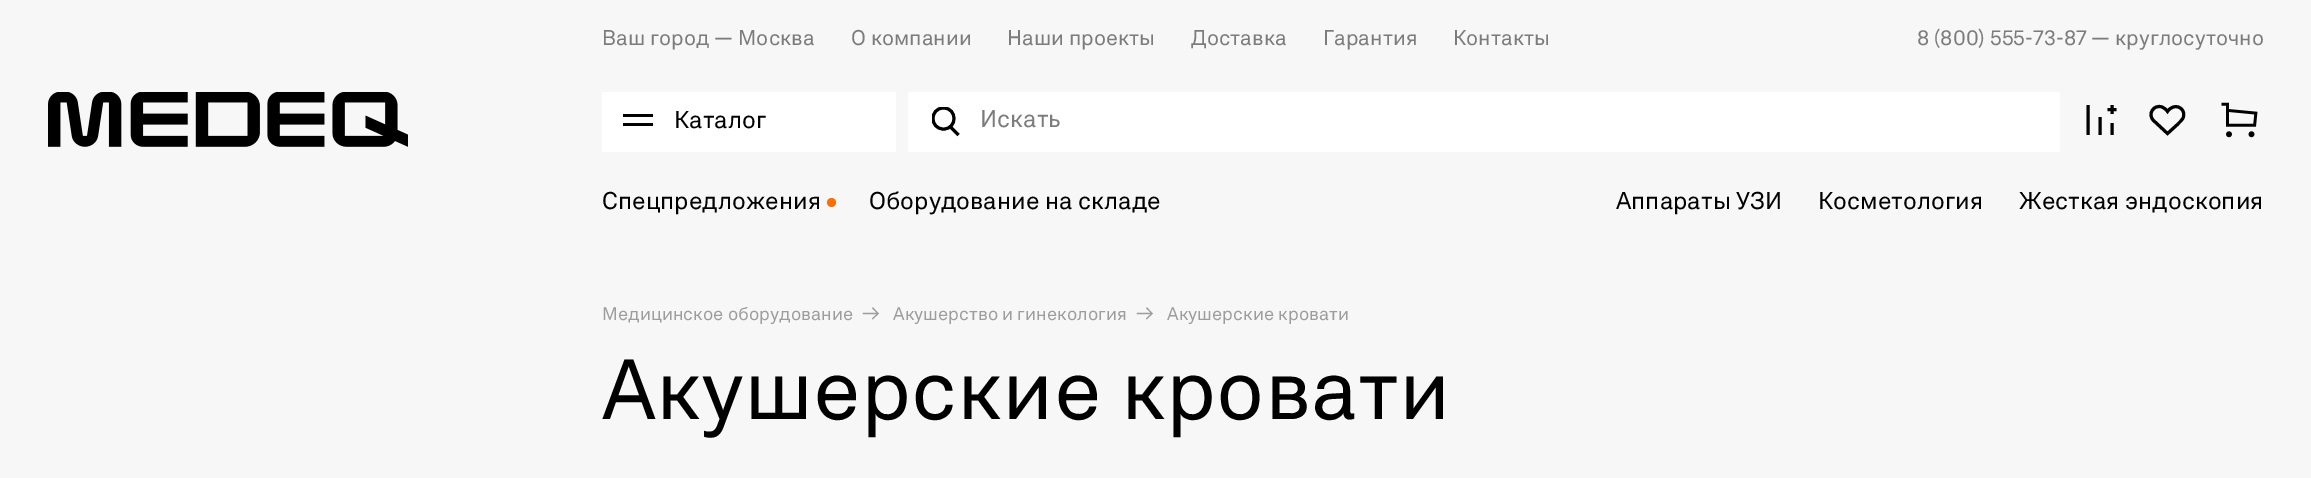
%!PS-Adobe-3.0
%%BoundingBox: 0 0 2311 478
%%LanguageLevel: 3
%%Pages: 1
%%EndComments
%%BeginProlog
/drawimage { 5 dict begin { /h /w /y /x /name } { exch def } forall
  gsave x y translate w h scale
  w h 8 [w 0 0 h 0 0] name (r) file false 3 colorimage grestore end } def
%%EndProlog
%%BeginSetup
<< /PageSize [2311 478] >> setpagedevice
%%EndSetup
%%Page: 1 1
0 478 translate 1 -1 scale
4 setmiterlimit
0.969 setgray
0 0 2311 478 rectfill
(images/1.raw) 48 92 360 55 drawimage
1 setgray
602 92 294 60 rectfill
0 setgray
623 114 30 3 rectfill
623 123 30 3 rectfill
1 setgray
908 92 1152 60 rectfill
gsave
932 107 30 30 rectclip
0 setgray
3 setlinewidth
newpath 950 126.5 moveto 958.5 135 lineto 943.5 129 moveto 929.5 129 929.5 108 943.5 108 curveto 957.5 108 957.5 129 943.5 129 curveto closepath stroke
grestore
0 setgray
3 setlinewidth
newpath 2088 105 moveto 2088 135 lineto 2100 117 moveto 2100 135 lineto 2112 123 moveto 2112 135 lineto 2107.5 109.5 moveto 2116.5 109.5 lineto 2112 105 moveto 2112 114 lineto stroke
newpath 2153.5 120.5 moveto 2167.5 133.5 lineto 2178 124 lineto 2179.5 122 2182 120.5 2183 118 curveto 2186 111.5 2180 105 2173.5 107 curveto 2171 107.5 2169 109.5 2167.5 111.5 curveto 2166 109.5 2164.5 108 2162 107 curveto 2154 104 2147 114 2153.5 120.5 curveto closepath stroke
(images/2.raw) 2221 102 37 36 drawimage
1 0.431 0 setrgbcolor
newpath 831.5 202.5 4.5 0 360 arc closepath fill
/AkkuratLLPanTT-Regular [21 0 0 -21 0 0] selectfont
0.486 setgray
602 45 moveto (Ваш город — Москва) show
851 45 moveto (О компании) show
1007 45 moveto (Наши проекты) show
1191 45 moveto (Доставка) show
1323 45 moveto (Гарантия) show
1453 45 moveto (Контакты) show
1917 45 moveto (8 \(800\) 555-73-87 — круглосуточно) show
/AkkuratLLPanTT-Regular [24 0 0 -24 0 0] selectfont
0 setgray
674 128 moveto (Каталог) show
0.486 setgray
980 127 moveto (Искать) show
0 setgray
602 209 moveto (Спецпредложения) show
869 209 moveto (Оборудование на складе) show
1616 209 moveto (Аппараты УЗИ) show
1818 209 moveto (Косметология) show
2019 209 moveto (Жесткая эндоскопия) show
/AkkuratLLPanTT-Regular [18 0 0 -18 0 0] selectfont
0.616 setgray
602 320 moveto (Медицинское оборудование) show
/AkkuratLLPanTT-Regular [21 0 0 -21 0 0] selectfont
862 320 moveto (→) show
/AkkuratLLPanTT-Regular [18 0 0 -18 0 0] selectfont
893 320 moveto (Акушерство и гинекология) show
/AkkuratLLPanTT-Regular [21 0 0 -21 0 0] selectfont
1136 320 moveto (→) show
/AkkuratLLPanTT-Regular [18 0 0 -18 0 0] selectfont
1167 320 moveto (Акушерские кровати) show
/AkkuratLLPanTT-Regular [84 0 0 -84 0 0] selectfont
0 setgray
602 419 moveto (Акушерские кровати) show
showpage
%%EOF
